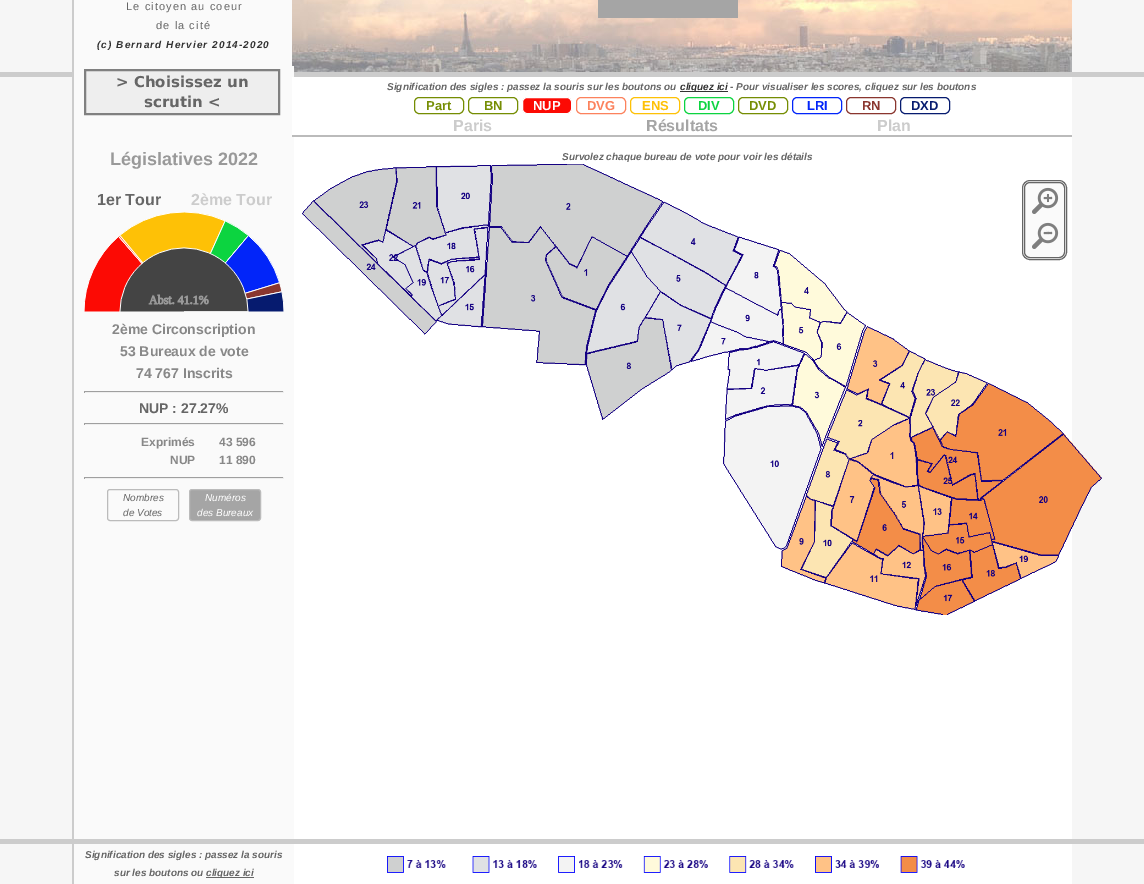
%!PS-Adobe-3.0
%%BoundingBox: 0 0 1144 884
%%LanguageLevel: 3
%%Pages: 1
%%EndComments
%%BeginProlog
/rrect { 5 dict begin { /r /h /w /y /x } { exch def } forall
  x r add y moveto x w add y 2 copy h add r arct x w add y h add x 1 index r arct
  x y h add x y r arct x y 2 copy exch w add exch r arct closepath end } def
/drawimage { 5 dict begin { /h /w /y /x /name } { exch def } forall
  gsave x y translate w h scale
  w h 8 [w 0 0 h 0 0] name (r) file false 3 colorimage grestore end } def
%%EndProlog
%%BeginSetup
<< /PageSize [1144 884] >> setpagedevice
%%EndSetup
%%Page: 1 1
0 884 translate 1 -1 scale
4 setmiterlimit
0.965 setgray
0 0 1144 884 rectfill
0.8 setgray
0 72 1144 5 rectfill
0.98 setgray
74 0 218 66 rectfill
0.8 setgray
72 0 2 72 rectfill
(images/1.raw) 292 0 780 72 drawimage
0.647 setgray
598 0 140 18 rectfill
1 setgray
294 137 778 702 rectfill
0.98 setgray
74 66 220 773 rectfill
0.8 setgray
72 77 2 762 rectfill
0.933 setgray
newpath 85 70 moveto 279 70 lineto 279 114 lineto 85 114 lineto closepath gsave fill grestore
0.502 setgray
2 setlinewidth
stroke
(images/2.raw) 84 212 200 100 drawimage
0.624 setgray
84 391 200 1 rectfill
0.933 setgray
283 391 1 2 rectfill
84 392 200 1 rectfill
0.624 setgray
84 391 1 2 rectfill
84 423 200 1 rectfill
0.933 setgray
283 423 1 2 rectfill
84 424 200 1 rectfill
0.624 setgray
84 423 1 2 rectfill
84 477 200 1 rectfill
0.933 setgray
283 477 1 2 rectfill
84 478 200 1 rectfill
0.624 setgray
84 477 1 2 rectfill
0.733 setgray
1 setlinewidth
107.5 489.5 71 31 2.5 rrect stroke
0.647 setgray
189.5 489.5 71 31 2.5 rrect gsave fill grestore
0.733 setgray
stroke
1 setgray
292 77 780 58 rectfill
0.733 setgray
292 135 780 2 rectfill
0.2 setgray
680 91 48 1 rectfill
0.459 0.553 0.012 setrgbcolor
414.5 97.5 49 16 4.5 rrect stroke
468.5 97.5 49 16 4.5 rrect stroke
0.988 0.039 0.016 setrgbcolor
522.5 97.5 49 16 4.5 rrect gsave fill grestore
1 setgray
stroke
0.988 0.51 0.365 setrgbcolor
576.5 97.5 49 16 4.5 rrect stroke
0.996 0.757 0.024 setrgbcolor
630.5 97.5 49 16 4.5 rrect stroke
0.047 0.831 0.251 setrgbcolor
684.5 97.5 49 16 4.5 rrect stroke
0.459 0.553 0.012 setrgbcolor
738.5 97.5 49 16 4.5 rrect stroke
0.008 0.145 0.976 setrgbcolor
792.5 97.5 49 16 4.5 rrect stroke
0.541 0.212 0.184 setrgbcolor
846.5 97.5 49 16 4.5 rrect stroke
0.024 0.106 0.435 setrgbcolor
900.5 97.5 49 16 4.5 rrect stroke
(images/3.raw) 302 164 800 451 drawimage
0.98 setgray
1022.5 180.5 44 79 7.5 rrect gsave fill grestore
0.4 setgray
stroke
1024.5 182.5 40 75 5.5 rrect stroke
(images/4.raw) 1032 187 27 27 drawimage
(images/5.raw) 1032 222 27 27 drawimage
0.8 setgray
0 839 1144 5 rectfill
1 setgray
294 844 778 40 rectfill
0.98 setgray
74 844 220 40 rectfill
0.8 setgray
72 844 2 40 rectfill
0.4 setgray
206 877 48 1 rectfill
(images/6.raw) 387 856 578 17 drawimage
/LiberationSans-Regular [11 0 0 -11 0 0] selectfont
126 10 moveto 1.1 0 (Le citoyen au coeur) ashow
156 29 moveto 1.1 0 (de la cité) ashow
/LiberationSans-BoldItalic [10 0 0 -10 0 0] selectfont
0.2 setgray
97 48 moveto 1.1 0 (\(c\) Bernard Hervier 2014-2020) ashow
/DejaVuSans-Bold [15 0 0 -15 0 0] selectfont
0.4 setgray
116 87 moveto (> Choisissez un) show
144 107 moveto (scrutin <) show
/LiberationSans-Bold [18 0 0 -18 0 0] selectfont
0.6 setgray
110 165 moveto (Législatives 2022) show
/LiberationSans-Bold [16 0 0 -16 0 0] selectfont
0.4 setgray
97 205 moveto (1er Tour) show
0.8 setgray
191 205 moveto (2ème Tour) show
/LiberationSans-Bold [14 0 0 -14 0 0] selectfont
0.533 setgray
112 334 moveto (2ème Circonscription) show
120 356 moveto (53 Bureaux de vote) show
136 378 moveto (74 767 Inscrits) show
0.4 setgray
139 413 moveto (NUP : 27.27%) show
/LiberationSans-Bold [12 0 0 -12 0 0] selectfont
0.533 setgray
141 446 moveto (Exprimés) show
219 446 moveto (43 596) show
170 464 moveto (NUP) show
219 464 moveto (11 890) show
/LiberationSans-Italic [10 0 0 -10 0 0] selectfont
0.4 setgray
123 501 moveto (Nombres) show
123 516 moveto (de Votes) show
1 setgray
205 501 moveto (Numéros) show
197 516 moveto (des Bureaux) show
/LiberationSans-BoldItalic [10 0 0 -10 0 0] selectfont
0.4 setgray
387 90 moveto (Signification des sigles : passez la souris sur les boutons ou) show
0.2 setgray
680 90 moveto (cliquez ici) show
0.4 setgray
730 90 moveto (- Pour visualiser les scores, cliquez sur les boutons) show
/LiberationSans-Bold [13 0 0 -13 0 0] selectfont
0.459 0.553 0.012 setrgbcolor
426 110 moveto (Part) show
484 110 moveto (BN) show
1 setgray
533 110 moveto (NUP) show
0.988 0.51 0.365 setrgbcolor
587 110 moveto (DVG) show
0.996 0.757 0.024 setrgbcolor
642 110 moveto (ENS) show
0.047 0.831 0.251 setrgbcolor
698 110 moveto (DIV) show
0.459 0.553 0.012 setrgbcolor
749 110 moveto (DVD) show
0.008 0.145 0.976 setrgbcolor
807 110 moveto (LRI) show
0.541 0.212 0.184 setrgbcolor
862 110 moveto (RN) show
0.024 0.106 0.435 setrgbcolor
911 110 moveto (DXD) show
/LiberationSans-Bold [16 0 0 -16 0 0] selectfont
0.8 setgray
453 131 moveto (Paris) show
0.647 setgray
646 131 moveto (Résultats) show
0.8 setgray
877 131 moveto (Plan) show
/LiberationSans-BoldItalic [10 0 0 -10 0 0] selectfont
0.4 setgray
562 160 moveto (Survolez chaque bureau de vote pour voir les détails) show
85 858 moveto (Signification des sigles : passez la souris) show
114 876 moveto (sur les boutons ou) show
206 876 moveto (cliquez ici) show
showpage
%%EOF
